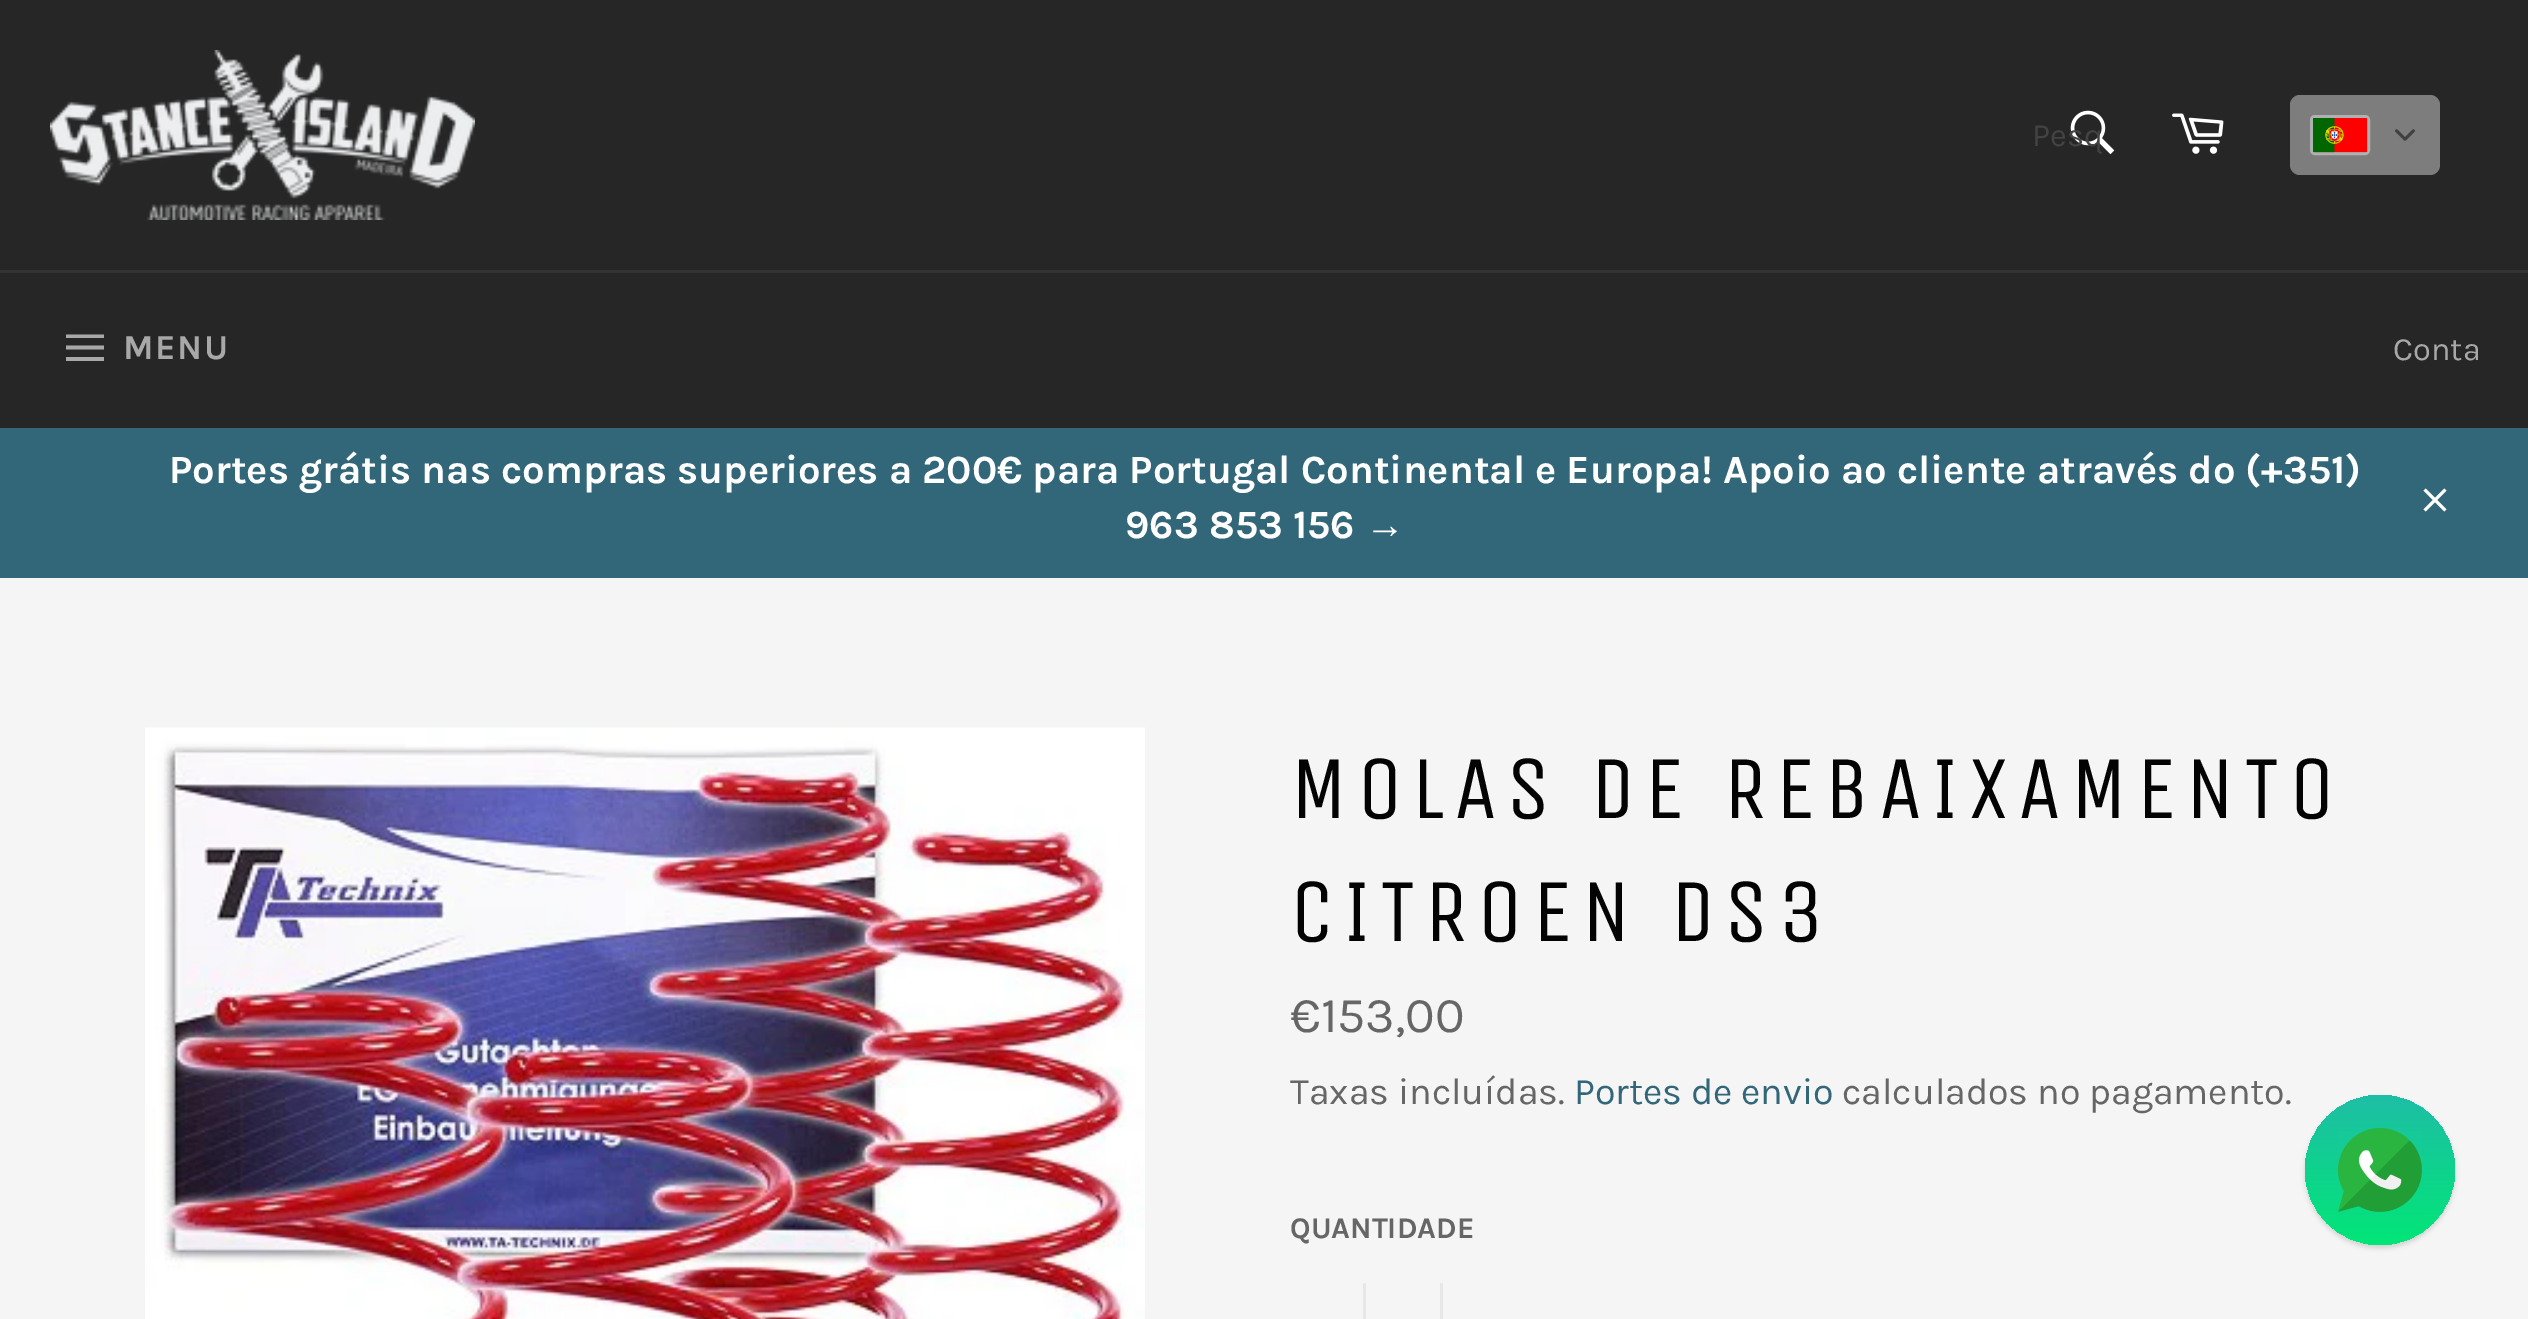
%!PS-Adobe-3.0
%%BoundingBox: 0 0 2528 1319
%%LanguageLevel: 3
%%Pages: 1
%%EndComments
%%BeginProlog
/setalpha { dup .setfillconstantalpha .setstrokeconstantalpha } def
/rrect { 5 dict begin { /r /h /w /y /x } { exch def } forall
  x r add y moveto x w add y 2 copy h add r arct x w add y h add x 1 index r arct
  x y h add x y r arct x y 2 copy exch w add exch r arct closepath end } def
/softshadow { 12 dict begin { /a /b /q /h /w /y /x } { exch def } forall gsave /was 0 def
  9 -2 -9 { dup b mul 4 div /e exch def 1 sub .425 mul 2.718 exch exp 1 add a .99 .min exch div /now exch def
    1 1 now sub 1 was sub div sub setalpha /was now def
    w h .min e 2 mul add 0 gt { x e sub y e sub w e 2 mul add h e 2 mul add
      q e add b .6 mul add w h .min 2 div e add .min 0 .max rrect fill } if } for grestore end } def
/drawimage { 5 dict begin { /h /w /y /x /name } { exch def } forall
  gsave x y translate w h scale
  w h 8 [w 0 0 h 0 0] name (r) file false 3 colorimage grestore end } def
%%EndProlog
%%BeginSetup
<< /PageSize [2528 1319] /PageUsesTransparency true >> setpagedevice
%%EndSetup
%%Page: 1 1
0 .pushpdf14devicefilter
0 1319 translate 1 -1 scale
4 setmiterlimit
0.961 setgray
0 0 2528 1319 rectfill
0.149 setgray
0 0 2528 270 rectfill
(images/1.raw) 50 50 425 170 drawimage
(images/2.raw) 2070 110 45 45 drawimage
(images/3.raw) 2172 113 52 41 drawimage
0.49 setgray
2290 95 150 80 10 rrect fill
0.686 0.69 0.694 setrgbcolor
3 setlinewidth
2311.5 116.5 57 37 3.5 rrect stroke
(images/4.raw) 2313 118 55 35 drawimage
(images/5.raw) 2395 129 20 12 drawimage
0.149 setgray
0 273 2528 155 rectfill
0.2 setgray
0 270 2528 3 rectfill
0.659 setgray
newpath 66 345.5 moveto 104 345.5 lineto 104 349.5 lineto 66 349.5 lineto closepath 66 334.5 moveto 104 334.5 lineto 104 338 lineto 66 338 lineto closepath 66 357 moveto 104 357 lineto 104 361 lineto 66 361 lineto closepath fill
0.196 0.404 0.475 setrgbcolor
0 428 2528 150 rectfill
(images/6.raw) 2423 488 24 24 drawimage
(images/7.raw) 145 727 1000 592 drawimage
0.906 setgray
1363 1283 3 36 rectfill
1440 1283 3 36 rectfill
0 setgray
2305 1098 150 150 75 2.5 0.15 softshadow
gsave newpath 2380 1170 75 0 360 arc closepath clip newpath
<< /ShadingType 2 /ColorSpace /DeviceRGB /Coords [2380 1095 2380 1245] /Extend [true true] /Function << /FunctionType 2 /Domain [0 1] /C0 [0.118 0.745 0.647] /C1 [0.004 0.902 0.467] /N 1 >> >> shfill grestore
(images/8.raw) 2338 1128 84 84 drawimage
/Karla-Regular [32.5 0 0 -32.5 0 0] selectfont
0.263 setgray
2032 146 moveto (Pesq) show
/Karla-Bold [35 0 0 -35 0 0] selectfont
0.659 setgray
123 359 moveto 1.5 0 (MENU) ashow
/Karla-Regular [32.5 0 0 -32.5 0 0] selectfont
2393 360 moveto (Conta) show
/Karla-Bold [40 0 0 -40 0 0] selectfont
1 setgray
169 483 moveto (Portes grátis nas compras superiores a 200€ para Portugal Continental e Europa! Apoio ao cliente através do \(+351\)) show
1125 538 moveto (963 853 156) show
/LiberationSans-Bold [40 0 0 -40 0 0] selectfont
1365 538 moveto (→) show
/UnicaOne-Regular [90 0 0 -90 0 0] selectfont
0.012 setgray
1290 818 moveto 9 0 (MOLAS DE REBAIXAMENTO) ashow
1290 941 moveto 9 0 (CITROEN DS3) ashow
/Karla-Regular [50 0 0 -50 0 0] selectfont
0.4 setgray
1290 1032 moveto (€153,00) show
/Karla-Regular [37.5 0 0 -37.5 0 0] selectfont
1290 1104 moveto (Taxas incluídas.) show
0.196 0.404 0.475 setrgbcolor
1574 1104 moveto (Portes de envio) show
0.4 setgray
1842 1104 moveto (calculados no pagamento.) show
/Karla-Bold [30 0 0 -30 0 0] selectfont
1290 1238 moveto (QUANTIDADE) show
.poppdf14devicefilter showpage
%%EOF
